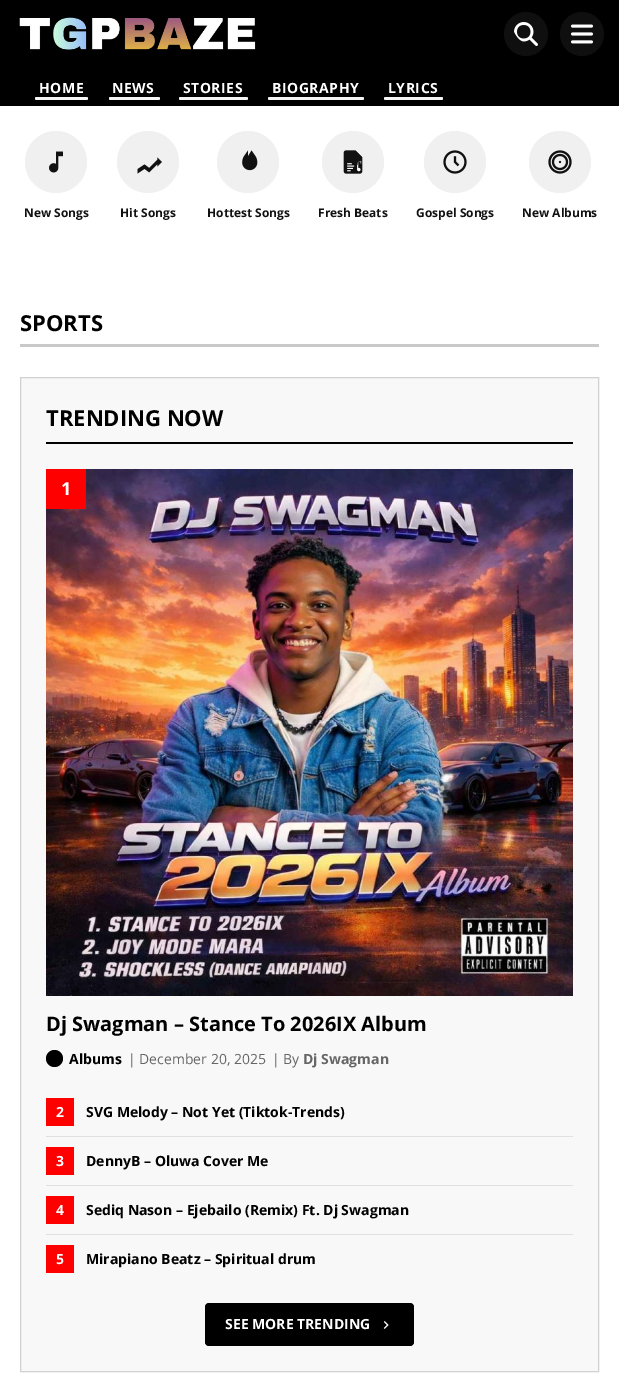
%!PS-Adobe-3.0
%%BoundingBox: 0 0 619 1389
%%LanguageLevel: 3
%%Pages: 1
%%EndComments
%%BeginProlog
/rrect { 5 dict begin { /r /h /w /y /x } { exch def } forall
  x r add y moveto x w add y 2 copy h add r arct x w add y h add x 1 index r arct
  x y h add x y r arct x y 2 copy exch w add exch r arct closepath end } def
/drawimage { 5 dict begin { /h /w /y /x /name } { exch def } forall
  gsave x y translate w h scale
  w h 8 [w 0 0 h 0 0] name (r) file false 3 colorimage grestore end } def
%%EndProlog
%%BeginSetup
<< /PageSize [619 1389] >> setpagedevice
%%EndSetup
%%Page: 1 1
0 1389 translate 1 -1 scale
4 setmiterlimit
1 setgray
0 0 619 1389 rectfill
0 setgray
0 0 619 106 rectfill
(images/1.raw) 19 17 237 33 drawimage
0.059 setgray
newpath 526 34 22 0 360 arc closepath fill
(images/2.raw) 514 22 24 24 drawimage
newpath 582 34 22 0 360 arc closepath fill
(images/3.raw) 571 24 22 20 drawimage
0.961 setgray
35 97 53 3 1.5 rrect fill
109 97 51 3 1.5 rrect fill
179 97 69 3 1.5 rrect fill
268 97 96 3 1.5 rrect fill
384 97 59 3 1.5 rrect fill
0.941 setgray
newpath 56 162 31 0 360 arc closepath fill
(images/4.raw) 49 151 14 22 drawimage
newpath 148 162 31 0 360 arc closepath fill
(images/5.raw) 137 157 25 17 drawimage
newpath 248 162 31 0 360 arc closepath fill
(images/6.raw) 242 150 16 21 drawimage
newpath 353 162 31 0 360 arc closepath fill
(images/7.raw) 343 150 20 24 drawimage
newpath 455 162 31 0 360 arc closepath fill
(images/8.raw) 443 150 24 24 drawimage
newpath 560 162 31 0 360 arc closepath fill
(images/9.raw) 548 150 24 24 drawimage
0.788 setgray
20 344 579 3 rectfill
0.973 setgray
newpath 20.5 377.5 moveto 598.5 377.5 lineto 598.5 1371.5 lineto 20.5 1371.5 lineto closepath gsave fill grestore
0.82 setgray
stroke
0 setgray
46 442 527 2 rectfill
(images/10.raw) 46 469 527 527 drawimage
1 0 0 setrgbcolor
46 469 40 40 rectfill
0 setgray
newpath 54.5 1058.5 8.5 0 360 arc closepath fill
0.878 setgray
46 1136 527 1 rectfill
1 0 0 setrgbcolor
46 1098 28 28 rectfill
0.878 setgray
46 1185 527 1 rectfill
1 0 0 setrgbcolor
46 1147 28 28 rectfill
0.878 setgray
46 1234 527 1 rectfill
1 0 0 setrgbcolor
46 1196 28 28 rectfill
46 1245 28 28 rectfill
0 setgray
205 1303 209 43 4 rrect fill
(images/11.raw) 383 1321 6 8 drawimage
/OpenSans-Bold [14 0 0 -14 0 0] selectfont
1 setgray
39 93 moveto 0.5 0 (HOME) ashow
112 93 moveto 0.5 0 (NEWS) ashow
183 93 moveto 0.5 0 (STORIES) ashow
272 93 moveto 0.5 0 (BIOGRAPHY) ashow
388 93 moveto 0.5 0 (LYRICS) ashow
/OpenSans-Bold [12 0 0 -12 0 0] selectfont
0.067 setgray
24 217 moveto (New Songs) show
120 217 moveto (Hit Songs) show
207 217 moveto (Hottest Songs) show
318 217 moveto (Fresh Beats) show
416 217 moveto (Gospel Songs) show
522 217 moveto (New Albums) show
/OpenSans-Bold [22 0 0 -22 0 0] selectfont
0 setgray
20 331 moveto (SPORTS) show
46 426 moveto (TRENDING NOW) show
/OpenSans-Bold [18 0 0 -18 0 0] selectfont
1 setgray
61 495 moveto (1) show
/OpenSans-Bold [20 0 0 -20 0 0] selectfont
0 setgray
46 1031 moveto (Dj Swagman – Stance To 2026IX Album) show
/OpenSans-Bold [14 0 0 -14 0 0] selectfont
69 1064 moveto (Albums) show
/OpenSans-Regular [14 0 0 -14 0 0] selectfont
0.4 setgray
128 1064 moveto (| December 20, 2025) show
272 1064 moveto (| By) show
/OpenSans-Bold [14 0 0 -14 0 0] selectfont
303 1064 moveto (Dj Swagman) show
1 setgray
56 1117 moveto (2) show
0 setgray
86 1117 moveto (SVG Melody – Not Yet \(Tiktok-Trends\)) show
1 setgray
56 1166 moveto (3) show
0 setgray
86 1166 moveto (DennyB – Oluwa Cover Me) show
1 setgray
56 1215 moveto (4) show
0 setgray
86 1215 moveto (Sediq Nason – Ejebailo \(Remix\) Ft. Dj Swagman) show
1 setgray
56 1264 moveto (5) show
0 setgray
86 1264 moveto (Mirapiano Beatz – Spiritual drum) show
1 setgray
225 1329 moveto (SEE MORE TRENDING) show
showpage
%%EOF
